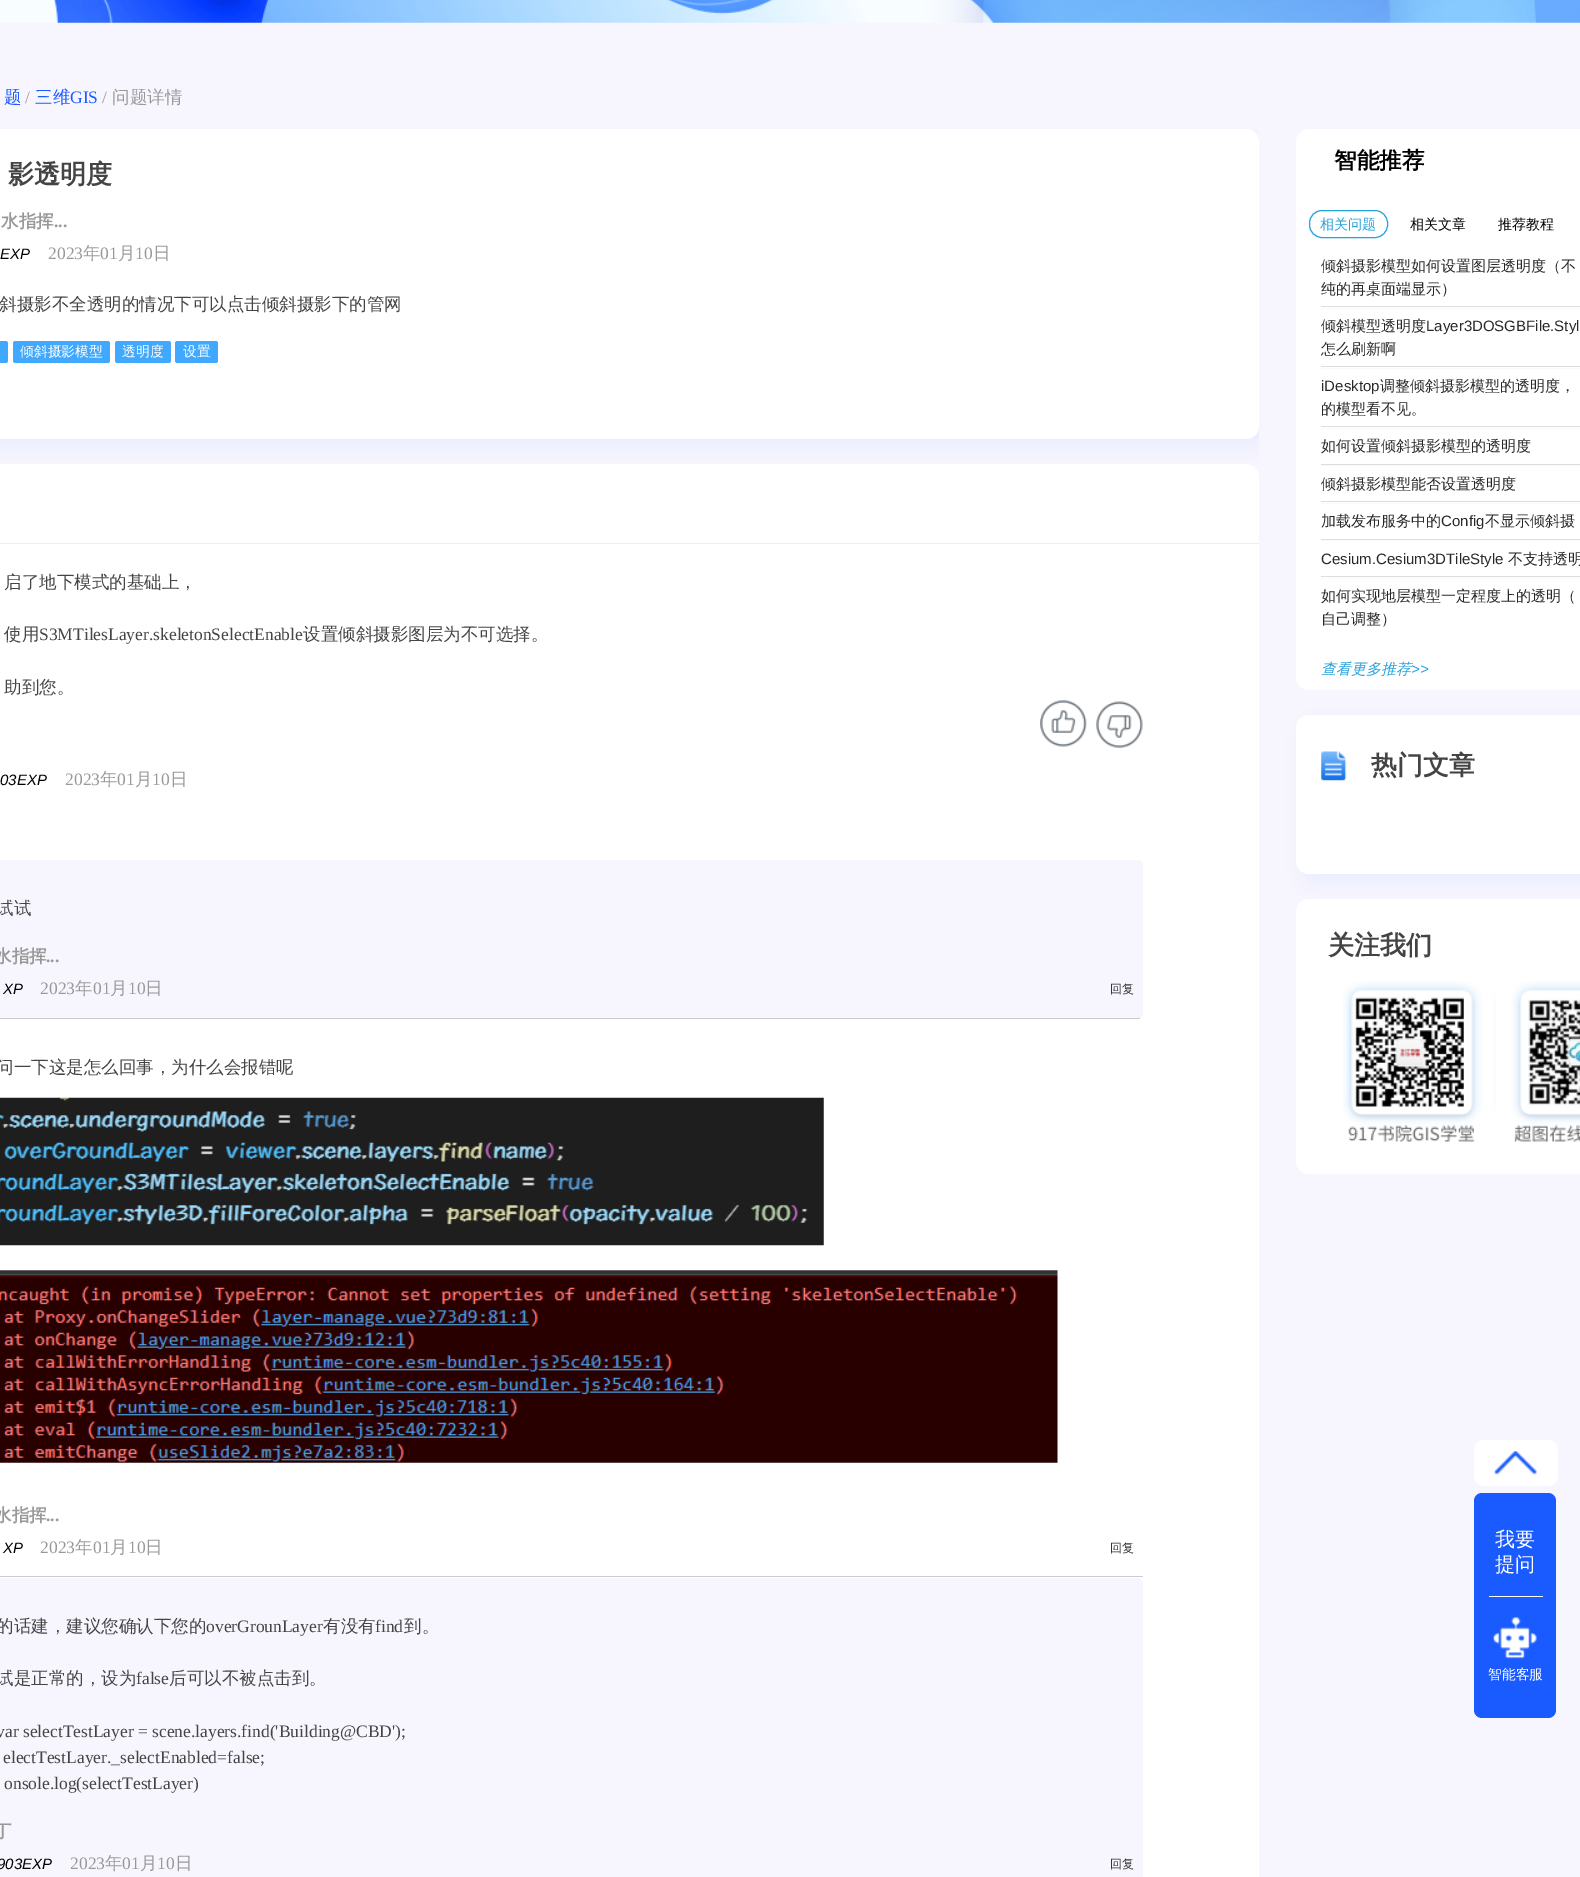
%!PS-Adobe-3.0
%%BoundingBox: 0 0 1580 1877
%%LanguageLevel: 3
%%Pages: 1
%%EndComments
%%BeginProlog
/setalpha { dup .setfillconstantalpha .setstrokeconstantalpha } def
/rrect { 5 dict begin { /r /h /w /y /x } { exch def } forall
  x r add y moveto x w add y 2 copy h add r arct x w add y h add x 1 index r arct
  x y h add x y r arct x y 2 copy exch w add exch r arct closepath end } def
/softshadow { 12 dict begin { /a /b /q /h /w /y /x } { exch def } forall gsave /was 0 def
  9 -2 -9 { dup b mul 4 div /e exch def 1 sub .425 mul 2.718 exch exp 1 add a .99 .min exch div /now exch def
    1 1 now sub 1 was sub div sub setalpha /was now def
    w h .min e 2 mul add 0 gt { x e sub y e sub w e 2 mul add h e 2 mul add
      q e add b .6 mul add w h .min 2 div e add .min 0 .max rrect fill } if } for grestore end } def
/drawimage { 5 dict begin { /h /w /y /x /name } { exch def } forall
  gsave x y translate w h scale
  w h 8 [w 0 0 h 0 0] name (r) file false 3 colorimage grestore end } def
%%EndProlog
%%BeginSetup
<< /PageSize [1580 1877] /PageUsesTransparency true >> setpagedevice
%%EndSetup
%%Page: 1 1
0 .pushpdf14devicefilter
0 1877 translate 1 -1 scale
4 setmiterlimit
0.969 0.965 0.996 setrgbcolor
0 0 1580 1877 rectfill
(images/1.raw) 0 0 1580 23 drawimage
1 setgray
-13 464 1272 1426 13 rrect fill
gsave
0 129 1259 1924 rectclip
0.118 0.349 1 setrgbcolor
-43 138 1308 310 13 10 0.05 softshadow
grestore
-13 129 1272 310 13 rrect fill
0.251 0.663 1 setrgbcolor
-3 341 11 22 2.5 rrect fill
13 341 97 22 2.5 rrect fill
115 341 56 22 2.5 rrect fill
175 341 43 22 2.5 rrect fill
0.933 setgray
0 543 1259 1 rectfill
(images/2.raw) 1040 700 47 47 drawimage
(images/3.raw) 1096 701 47 47 drawimage
0.969 0.965 0.996 setrgbcolor
-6 860 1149 159 6 rrect fill
0.8 setgray
0 1018 1140 1 rectfill
0 1576 1143 1 rectfill
(images/4.raw) 0 1097 824 149 drawimage
(images/5.raw) 0 1270 1058 193 drawimage
0.969 0.965 0.996 setrgbcolor
-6 1578 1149 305 6 rrect fill
1 setgray
1296 129 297 561 13 rrect fill
0.149 0.631 0.855 setrgbcolor
1309.5 210.5 78 27 12.5 rrect stroke
0.867 setgray
1321 306 259 1 rectfill
0.98 setgray
1321 308 259 1 rectfill
0.867 setgray
1321 366 259 1 rectfill
0.98 setgray
1321 368 259 1 rectfill
0.867 setgray
1321 426 259 1 rectfill
0.98 setgray
1321 428 259 1 rectfill
0.867 setgray
1321 464 259 1 rectfill
0.98 setgray
1321 465 259 1 rectfill
0.867 setgray
1321 501 259 1 rectfill
0.98 setgray
1321 503 259 1 rectfill
0.867 setgray
1321 539 259 1 rectfill
0.98 setgray
1321 540 259 1 rectfill
0.867 setgray
1321 576 259 1 rectfill
0.98 setgray
1321 578 259 1 rectfill
0.118 0.349 1 setrgbcolor
1303 724 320 159 13 10 0.05 softshadow
1 setgray
1296 715 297 159 13 rrect fill
(images/6.raw) 1321 751 26 30 drawimage
1296 899 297 275 13 rrect fill
(images/7.raw) 1343 981 153 161 drawimage
(images/8.raw) 1511 981 69 161 drawimage
1474 1440 84 46 10 rrect fill
(images/9.raw) 1494 1451 43 24 drawimage
0.102 0.357 1 setrgbcolor
1474 1493 82 225 8 rrect fill
1 setgray
1489 1596 54 1 0.5 rrect fill
(images/10.raw) 1493 1617 44 42 drawimage
/WenQuanYiZenHei-Medium [17.5 0 0 -17.5 0 0] selectfont
0.102 0.357 1 setrgbcolor
4 103 moveto (题) show
/LiberationSerif-Regular [17.5 0 0 -17.5 0 0] selectfont
0.6 setgray
25 103 moveto (/) show
/WenQuanYiZenHei-Medium [17.5 0 0 -17.5 0 0] selectfont
0.102 0.357 1 setrgbcolor
35 103 moveto (三维) show
/LiberationSerif-Regular [17.5 0 0 -17.5 0 0] selectfont
70 103 moveto (GIS) show
0.6 setgray
102 103 moveto (/) show
/WenQuanYiZenHei-Medium [17.5 0 0 -17.5 0 0] selectfont
112 103 moveto (问题详情) show
/WenQuanYiZenHei-Bold [26 0 0 -26 0 0] selectfont
0.267 setgray
8 183 moveto (影透明度) show
/WenQuanYiZenHei-Bold [17.5 0 0 -17.5 0 0] selectfont
0.6 setgray
1 227 moveto (水指挥) show
/LiberationSerif-Bold [17.5 0 0 -17.5 0 0] selectfont
54 227 moveto (...) show
/LiberationSans-Italic [15 0 0 -15 0 0] selectfont
0 setgray
0 259 moveto (EXP) show
/LiberationSerif-Regular [17.5 0 0 -17.5 0 0] selectfont
0.6 setgray
48 259 moveto (2023) show
/WenQuanYiZenHei-Medium [17.5 0 0 -17.5 0 0] selectfont
83 259 moveto (年) show
/LiberationSerif-Regular [17.5 0 0 -17.5 0 0] selectfont
100 259 moveto (01) show
/WenQuanYiZenHei-Medium [17.5 0 0 -17.5 0 0] selectfont
118 259 moveto (月) show
/LiberationSerif-Regular [17.5 0 0 -17.5 0 0] selectfont
135 259 moveto (10) show
/WenQuanYiZenHei-Medium [17.5 0 0 -17.5 0 0] selectfont
153 259 moveto (日) show
0.267 setgray
-1 310 moveto (斜摄影不全透明的情况下可以点击倾斜摄影下的管网) show
/WenQuanYiZenHei-Medium [13.75 0 0 -13.75 0 0] selectfont
1 setgray
20 356 moveto (倾斜摄影模型) show
122 356 moveto (透明度) show
183 356 moveto (设置) show
/WenQuanYiZenHei-Medium [17.5 0 0 -17.5 0 0] selectfont
0.267 setgray
4 588 moveto (启了地下模式的基础上，) show
4 640 moveto (使用) show
/LiberationSerif-Regular [17.5 0 0 -17.5 0 0] selectfont
39 640 moveto (S3MTilesLayer.skeletonSelectEnable) show
/WenQuanYiZenHei-Medium [17.5 0 0 -17.5 0 0] selectfont
303 640 moveto (设置倾斜摄影图层为不可选择。) show
4 693 moveto (助到您。) show
/LiberationSans-Italic [15 0 0 -15 0 0] selectfont
0 setgray
0 785 moveto (03EXP) show
/LiberationSerif-Regular [17.5 0 0 -17.5 0 0] selectfont
0.6 setgray
65 785 moveto (2023) show
/WenQuanYiZenHei-Medium [17.5 0 0 -17.5 0 0] selectfont
100 785 moveto (年) show
/LiberationSerif-Regular [17.5 0 0 -17.5 0 0] selectfont
117 785 moveto (01) show
/WenQuanYiZenHei-Medium [17.5 0 0 -17.5 0 0] selectfont
135 785 moveto (月) show
/LiberationSerif-Regular [17.5 0 0 -17.5 0 0] selectfont
152 785 moveto (10) show
/WenQuanYiZenHei-Medium [17.5 0 0 -17.5 0 0] selectfont
170 785 moveto (日) show
0.267 setgray
-4 914 moveto (试试) show
/WenQuanYiZenHei-Bold [17.5 0 0 -17.5 0 0] selectfont
0.6 setgray
-6 962 moveto (水指挥) show
/LiberationSerif-Bold [17.5 0 0 -17.5 0 0] selectfont
46 962 moveto (...) show
/LiberationSans-Italic [15 0 0 -15 0 0] selectfont
0 setgray
3 994 moveto (XP) show
/LiberationSerif-Regular [17.5 0 0 -17.5 0 0] selectfont
0.6 setgray
40 994 moveto (2023) show
/WenQuanYiZenHei-Medium [17.5 0 0 -17.5 0 0] selectfont
75 994 moveto (年) show
/LiberationSerif-Regular [17.5 0 0 -17.5 0 0] selectfont
93 994 moveto (01) show
/WenQuanYiZenHei-Medium [17.5 0 0 -17.5 0 0] selectfont
110 994 moveto (月) show
/LiberationSerif-Regular [17.5 0 0 -17.5 0 0] selectfont
128 994 moveto (10) show
/WenQuanYiZenHei-Medium [17.5 0 0 -17.5 0 0] selectfont
145 994 moveto (日) show
/WenQuanYiZenHei-Medium [12 0 0 -12 0 0] selectfont
0.2 setgray
1110 993 moveto (回复) show
/WenQuanYiZenHei-Medium [17.5 0 0 -17.5 0 0] selectfont
0.267 setgray
-4 1073 moveto (问一下这是怎么回事，为什么会报错呢) show
/WenQuanYiZenHei-Bold [17.5 0 0 -17.5 0 0] selectfont
0.6 setgray
-6 1521 moveto (水指挥) show
/LiberationSerif-Bold [17.5 0 0 -17.5 0 0] selectfont
46 1521 moveto (...) show
/LiberationSans-Italic [15 0 0 -15 0 0] selectfont
0 setgray
3 1553 moveto (XP) show
/LiberationSerif-Regular [17.5 0 0 -17.5 0 0] selectfont
0.6 setgray
40 1553 moveto (2023) show
/WenQuanYiZenHei-Medium [17.5 0 0 -17.5 0 0] selectfont
75 1553 moveto (年) show
/LiberationSerif-Regular [17.5 0 0 -17.5 0 0] selectfont
93 1553 moveto (01) show
/WenQuanYiZenHei-Medium [17.5 0 0 -17.5 0 0] selectfont
110 1553 moveto (月) show
/LiberationSerif-Regular [17.5 0 0 -17.5 0 0] selectfont
128 1553 moveto (10) show
/WenQuanYiZenHei-Medium [17.5 0 0 -17.5 0 0] selectfont
145 1553 moveto (日) show
/WenQuanYiZenHei-Medium [12 0 0 -12 0 0] selectfont
0.2 setgray
1110 1552 moveto (回复) show
/WenQuanYiZenHei-Medium [17.5 0 0 -17.5 0 0] selectfont
0.267 setgray
-4 1632 moveto (的话建，建议您确认下您的) show
/LiberationSerif-Regular [17.5 0 0 -17.5 0 0] selectfont
206 1632 moveto (overGrounLayer) show
/WenQuanYiZenHei-Medium [17.5 0 0 -17.5 0 0] selectfont
323 1632 moveto (有没有) show
/LiberationSerif-Regular [17.5 0 0 -17.5 0 0] selectfont
375 1632 moveto (find) show
/WenQuanYiZenHei-Medium [17.5 0 0 -17.5 0 0] selectfont
404 1632 moveto (到。) show
-4 1684 moveto (试是正常的，设为) show
/LiberationSerif-Regular [17.5 0 0 -17.5 0 0] selectfont
136 1684 moveto (false) show
/WenQuanYiZenHei-Medium [17.5 0 0 -17.5 0 0] selectfont
169 1684 moveto (后可以不被点击到。) show
/LiberationSerif-Regular [17.5 0 0 -17.5 0 0] selectfont
-4 1737 moveto (var selectTestLayer = scene.layers.find\('Building@CBD'\);) show
3 1763 moveto (electTestLayer._selectEnabled=false;) show
4 1789 moveto (onsole.log\(selectTestLayer\)) show
/WenQuanYiZenHei-Bold [17.5 0 0 -17.5 0 0] selectfont
0.6 setgray
-6 1837 moveto (丁) show
/LiberationSans-Italic [15 0 0 -15 0 0] selectfont
0 setgray
-3 1869 moveto (903EXP) show
/LiberationSerif-Regular [17.5 0 0 -17.5 0 0] selectfont
0.6 setgray
70 1869 moveto (2023) show
/WenQuanYiZenHei-Medium [17.5 0 0 -17.5 0 0] selectfont
105 1869 moveto (年) show
/LiberationSerif-Regular [17.5 0 0 -17.5 0 0] selectfont
122 1869 moveto (01) show
/WenQuanYiZenHei-Medium [17.5 0 0 -17.5 0 0] selectfont
140 1869 moveto (月) show
/LiberationSerif-Regular [17.5 0 0 -17.5 0 0] selectfont
157 1869 moveto (10) show
/WenQuanYiZenHei-Medium [17.5 0 0 -17.5 0 0] selectfont
175 1869 moveto (日) show
/WenQuanYiZenHei-Medium [12 0 0 -12 0 0] selectfont
0.2 setgray
1110 1868 moveto (回复) show
/WenQuanYiZenHei-Bold [22.5 0 0 -22.5 0 0] selectfont
0 setgray
1334 168 moveto (智能推荐) show
/WenQuanYiZenHei-Medium [14 0 0 -14 0 0] selectfont
0.149 0.631 0.855 setrgbcolor
1320 229 moveto (相关问题) show
0 setgray
1410 229 moveto (相关文章) show
1498 229 moveto (推荐教程) show
/WenQuanYiZenHei-Medium [15 0 0 -15 0 0] selectfont
0.157 setgray
1321 271 moveto (倾斜摄影模型如何设置图层透明度（不) show
1321 294 moveto (纯的再桌面端显示）) show
1321 331 moveto (倾斜模型透明度) show
/LiberationSans-Regular [15 0 0 -15 0 0] selectfont
1426 331 moveto (Layer3DOSGBFile.Styl) show
/WenQuanYiZenHei-Medium [15 0 0 -15 0 0] selectfont
1321 354 moveto (怎么刷新啊) show
/LiberationSans-Regular [15 0 0 -15 0 0] selectfont
1321 391 moveto (iDesktop) show
/WenQuanYiZenHei-Medium [15 0 0 -15 0 0] selectfont
1380 391 moveto (调整倾斜摄影模型的透明度，) show
1321 414 moveto (的模型看不见。) show
1321 451 moveto (如何设置倾斜摄影模型的透明度) show
1321 489 moveto (倾斜摄影模型能否设置透明度) show
1321 526 moveto (加载发布服务中的) show
/LiberationSans-Regular [15 0 0 -15 0 0] selectfont
1441 526 moveto (Config) show
/WenQuanYiZenHei-Medium [15 0 0 -15 0 0] selectfont
1485 526 moveto (不显示倾斜摄) show
/LiberationSans-Regular [15 0 0 -15 0 0] selectfont
1321 564 moveto (Cesium.Cesium3DTileStyle) show
/WenQuanYiZenHei-Medium [15 0 0 -15 0 0] selectfont
1508 564 moveto (不支持透明) show
1321 601 moveto (如何实现地层模型一定程度上的透明（) show
1321 624 moveto (自己调整）) show
/WenQuanYiZenHei-MediumItalic [15 0 0 -15 0 0] selectfont
0.149 0.631 0.855 setrgbcolor
1321 674 moveto (查看更多推荐) show
/LiberationSans-Italic [15 0 0 -15 0 0] selectfont
1411 674 moveto (>>) show
/WenQuanYiZenHei-Bold [26 0 0 -26 0 0] selectfont
0.267 setgray
1371 774 moveto (热门文章) show
1328 954 moveto (关注我们) show
/WenQuanYiZenHei-Medium [20 0 0 -20 0 0] selectfont
1 setgray
1495 1546 moveto (我要) show
1495 1571 moveto (提问) show
/WenQuanYiZenHei-Medium [13.75 0 0 -13.75 0 0] selectfont
1488 1679 moveto (智能客服) show
.poppdf14devicefilter showpage
%%EOF
